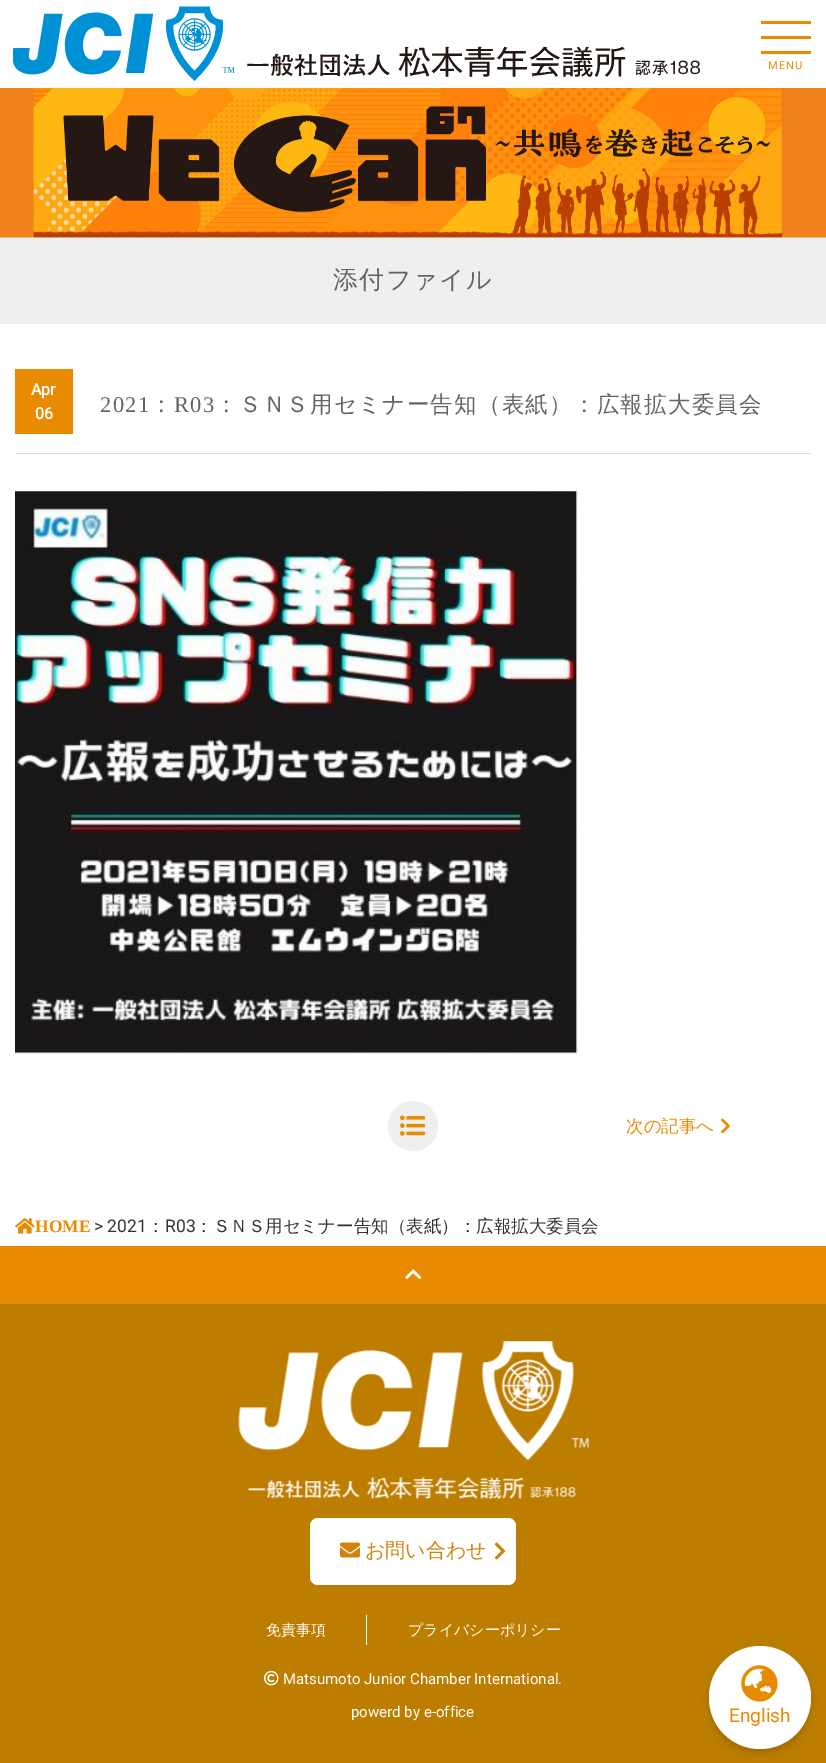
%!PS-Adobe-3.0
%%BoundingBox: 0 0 826 1763
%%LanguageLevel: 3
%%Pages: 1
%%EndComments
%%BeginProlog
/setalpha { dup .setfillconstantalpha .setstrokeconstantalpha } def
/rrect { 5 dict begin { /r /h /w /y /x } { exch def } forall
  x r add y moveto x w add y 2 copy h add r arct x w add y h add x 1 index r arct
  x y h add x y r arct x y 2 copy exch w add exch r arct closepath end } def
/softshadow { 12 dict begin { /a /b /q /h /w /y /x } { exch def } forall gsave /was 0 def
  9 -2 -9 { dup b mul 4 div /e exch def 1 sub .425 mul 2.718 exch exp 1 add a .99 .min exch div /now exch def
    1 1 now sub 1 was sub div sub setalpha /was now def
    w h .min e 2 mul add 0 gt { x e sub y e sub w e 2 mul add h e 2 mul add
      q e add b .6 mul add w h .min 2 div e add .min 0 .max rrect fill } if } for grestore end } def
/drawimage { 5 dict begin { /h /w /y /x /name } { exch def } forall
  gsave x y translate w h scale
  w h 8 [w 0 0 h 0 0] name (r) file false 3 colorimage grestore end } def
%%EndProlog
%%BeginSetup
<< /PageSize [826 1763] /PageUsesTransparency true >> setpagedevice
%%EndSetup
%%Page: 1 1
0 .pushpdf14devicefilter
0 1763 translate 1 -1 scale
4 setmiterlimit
1 setgray
0 0 826 1763 rectfill
(images/1.raw) 13 6 687 75 drawimage
0.91 0.545 0 setrgbcolor
761 21 50 3 rectfill
761 36 50 3 rectfill
761 51 50 3 rectfill
(images/2.raw) 0 88 826 150 drawimage
0.937 setgray
0 238 826 86 rectfill
0.867 setgray
15 453 796 1 rectfill
0.91 0.545 0 setrgbcolor
15 369 58 65 rectfill
(images/3.raw) 15 491 563 563 drawimage
0.937 setgray
newpath 413 1126 25 0 360 arc closepath fill
(images/4.raw) 400 1115 25 21 drawimage
(images/5.raw) 721 1118 9 16 drawimage
(images/6.raw) 15 1218 20 16 drawimage
0.91 0.545 0 setrgbcolor
0 1246 826 58 rectfill
(images/7.raw) 405 1269 17 10 drawimage
0.737 0.49 0 setrgbcolor
0 1304 826 459 rectfill
(images/8.raw) 238 1341 351 159 drawimage
1 setgray
310 1518 206 67 8 rrect fill
(images/9.raw) 340 1542 20 16 drawimage
(images/10.raw) 494 1542 12 18 drawimage
366 1615 1 30 rectfill
(images/11.raw) 264 1670 15 16 drawimage
0 setgray
709 1650 102 103 51 4 0.16 softshadow
1 setgray
709 1646 102 103 51 rrect fill
(images/12.raw) 741 1665 37 37 drawimage
/Roboto-Regular [11 0 0 -11 0 0] selectfont
0.91 0.545 0 setrgbcolor
768 69 moveto 1.25 0 (MENU) ashow
/WenQuanYiZenHei-Medium [25 0 0 -25 0 0] selectfont
0.392 setgray
333 288 moveto 1.25 0 (添付ファイル) ashow
/Roboto-Bold [16 0 0 -16 0 0] selectfont
1 setgray
31 395 moveto (Apr) show
35 419 moveto (06) show
/LiberationSerif-Regular [22.5 0 0 -22.5 0 0] selectfont
0.392 setgray
100 412 moveto 1.25 0 (2021) ashow
/WenQuanYiZenHei-Medium [22.5 0 0 -22.5 0 0] selectfont
150 412 moveto 1.25 0 (：) ashow
/LiberationSerif-Regular [22.5 0 0 -22.5 0 0] selectfont
174 412 moveto 1.25 0 (R03) ashow
/WenQuanYiZenHei-Medium [22.5 0 0 -22.5 0 0] selectfont
215 412 moveto 1.25 0 (：ＳＮＳ用セミナー告知（表紙）：広報拡大委員会) ashow
/WenQuanYiZenHei-Medium [17.5 0 0 -17.5 0 0] selectfont
0.91 0.545 0 setrgbcolor
626 1132 moveto (次の記事へ) show
/LiberationSerif-Bold [17.5 0 0 -17.5 0 0] selectfont
35 1232 moveto (HOME) show
/Roboto-Regular [17.5 0 0 -17.5 0 0] selectfont
0.2 setgray
94 1232 moveto (> 2021) show
/WenQuanYiZenHei-Medium [17.5 0 0 -17.5 0 0] selectfont
147 1232 moveto (：) show
/Roboto-Regular [17.5 0 0 -17.5 0 0] selectfont
165 1232 moveto (R03) show
/WenQuanYiZenHei-Medium [17.5 0 0 -17.5 0 0] selectfont
195 1232 moveto (：ＳＮＳ用セミナー告知（表紙）：広報拡大委員会) show
/WenQuanYiZenHei-Medium [20 0 0 -20 0 0] selectfont
0.82 0.51 0.047 setrgbcolor
365 1557 moveto (お問い合わせ) show
/WenQuanYiZenHei-Medium [15 0 0 -15 0 0] selectfont
1 setgray
266 1635 moveto (免責事項) show
408 1635 moveto (プライバシーポリシー) show
/Roboto-Regular [15 0 0 -15 0 0] selectfont
283 1684 moveto (Matsumoto Junior Chamber International.) show
351 1717 moveto (powerd by e-office) show
/Roboto-Regular [19 0 0 -19 0 0] selectfont
0.91 0.545 0 setrgbcolor
729 1722 moveto (English) show
.poppdf14devicefilter showpage
%%EOF
